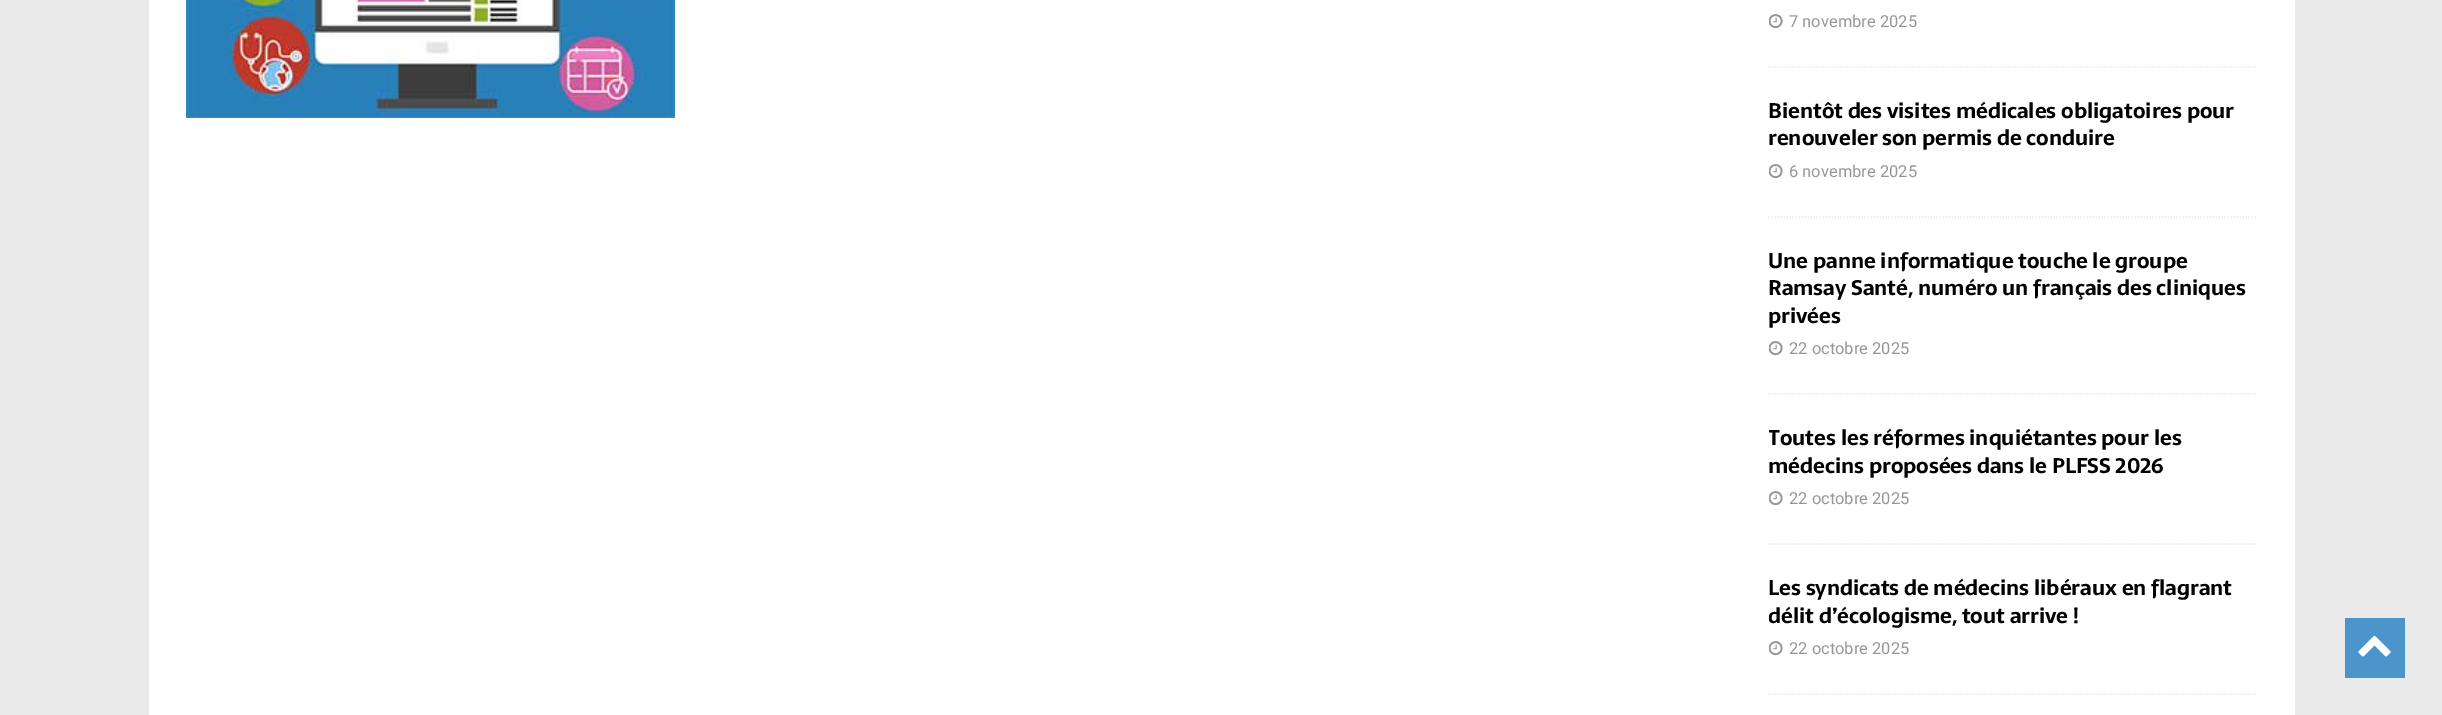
%!PS-Adobe-3.0
%%BoundingBox: 0 0 2442 715
%%LanguageLevel: 3
%%Pages: 1
%%EndComments
%%BeginProlog
/drawimage { 5 dict begin { /h /w /y /x /name } { exch def } forall
  gsave x y translate w h scale
  w h 8 [w 0 0 h 0 0] name (r) file false 3 colorimage grestore end } def
%%EndProlog
%%BeginSetup
<< /PageSize [2442 715] >> setpagedevice
%%EndSetup
%%Page: 1 1
0 715 translate 1 -1 scale
4 setmiterlimit
0.918 setgray
0 0 2442 715 rectfill
1 setgray
149 0 2146 715 rectfill
(images/1.raw) 186 0 489 118 drawimage
0.922 setgray
1.5 setlinewidth
[1.5 1.5] 0 setdash
newpath 1768.5 67 moveto 2257.5 67 lineto stroke
(images/2.raw) 1769 14 14 15 drawimage
newpath 1768.5 217 moveto 2257.5 217 lineto stroke
(images/2.raw) 1769 164 14 15 drawimage
newpath 1768.5 394 moveto 2257.5 394 lineto stroke
(images/2.raw) 1769 341 14 15 drawimage
newpath 1768.5 544 moveto 2257.5 544 lineto stroke
(images/2.raw) 1769 491 14 15 drawimage
newpath 1768.5 694 moveto 2257.5 694 lineto stroke
(images/2.raw) 1769 641 14 15 drawimage
0.294 0.584 0.8 setrgbcolor
2345 618 60 60 rectfill
(images/3.raw) 2358 635 33 22 drawimage
/Roboto-Regular [16.5 0 0 -16.5 0 0] selectfont
0.592 setgray
1789 27 moveto (7 novembre 2025) show
/Sarala-Bold [21 0 0 -21 0 0] selectfont
0 setgray
1768 118 moveto (Bientôt des visites médicales obligatoires pour) show
1768 145 moveto (renouveler son permis de conduire) show
/Roboto-Regular [16.5 0 0 -16.5 0 0] selectfont
0.592 setgray
1789 177 moveto (6 novembre 2025) show
/Sarala-Bold [21 0 0 -21 0 0] selectfont
0 setgray
1768 268 moveto (Une panne informatique touche le groupe) show
1768 295 moveto (Ramsay Santé, numéro un français des cliniques) show
1768 323 moveto (privées) show
/Roboto-Regular [16.5 0 0 -16.5 0 0] selectfont
0.592 setgray
1789 354 moveto (22 octobre 2025) show
gsave
1769 425 489 88 rectclip
/Sarala-Bold [21 0 0 -21 0 0] selectfont
0 setgray
1768 445 moveto (Toutes les réformes inquiétantes pour les) show
grestore
/Sarala-Bold [21 0 0 -21 0 0] selectfont
0 setgray
1768 473 moveto (médecins proposées dans le PLFSS 2026) show
/Roboto-Regular [16.5 0 0 -16.5 0 0] selectfont
0.592 setgray
1789 504 moveto (22 octobre 2025) show
/Sarala-Bold [21 0 0 -21 0 0] selectfont
0 setgray
1768 595 moveto (Les syndicats de médecins libéraux en flagrant) show
gsave
1769 575 489 88 rectclip
1768 623 moveto (délit d’écologisme, tout arrive !) show
grestore
/Roboto-Regular [16.5 0 0 -16.5 0 0] selectfont
0.592 setgray
1789 654 moveto (22 octobre 2025) show
showpage
%%EOF
